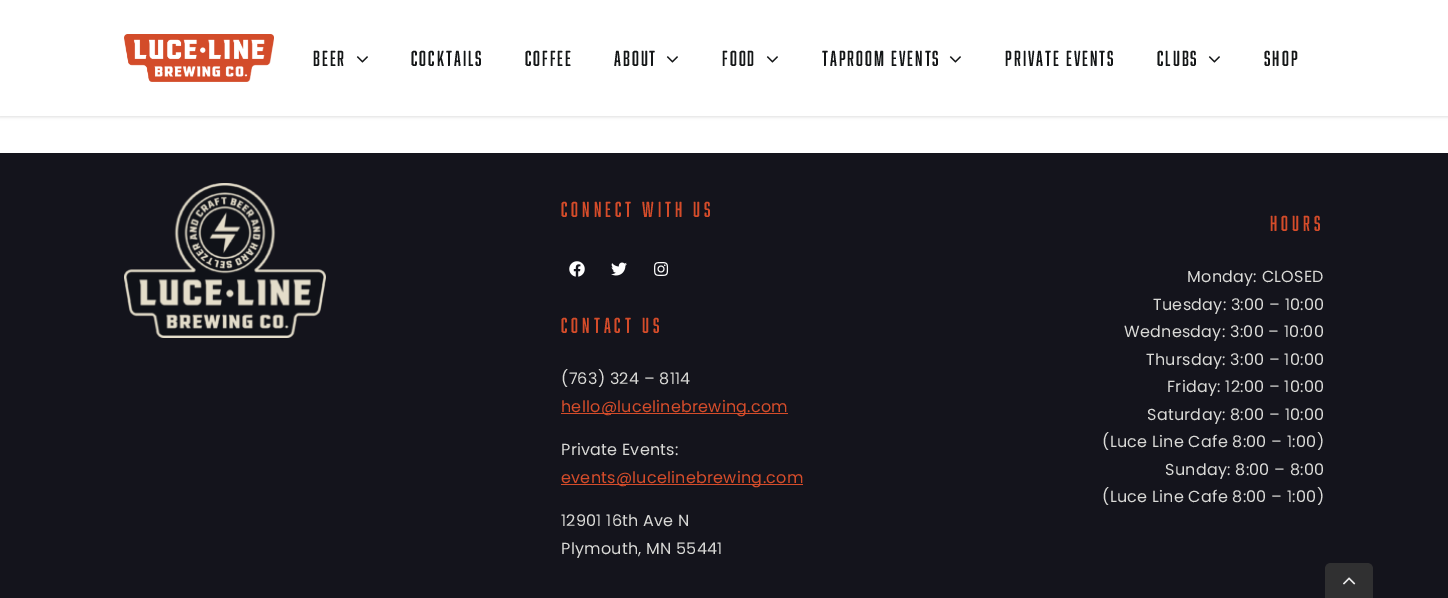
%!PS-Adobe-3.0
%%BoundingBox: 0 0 1448 598
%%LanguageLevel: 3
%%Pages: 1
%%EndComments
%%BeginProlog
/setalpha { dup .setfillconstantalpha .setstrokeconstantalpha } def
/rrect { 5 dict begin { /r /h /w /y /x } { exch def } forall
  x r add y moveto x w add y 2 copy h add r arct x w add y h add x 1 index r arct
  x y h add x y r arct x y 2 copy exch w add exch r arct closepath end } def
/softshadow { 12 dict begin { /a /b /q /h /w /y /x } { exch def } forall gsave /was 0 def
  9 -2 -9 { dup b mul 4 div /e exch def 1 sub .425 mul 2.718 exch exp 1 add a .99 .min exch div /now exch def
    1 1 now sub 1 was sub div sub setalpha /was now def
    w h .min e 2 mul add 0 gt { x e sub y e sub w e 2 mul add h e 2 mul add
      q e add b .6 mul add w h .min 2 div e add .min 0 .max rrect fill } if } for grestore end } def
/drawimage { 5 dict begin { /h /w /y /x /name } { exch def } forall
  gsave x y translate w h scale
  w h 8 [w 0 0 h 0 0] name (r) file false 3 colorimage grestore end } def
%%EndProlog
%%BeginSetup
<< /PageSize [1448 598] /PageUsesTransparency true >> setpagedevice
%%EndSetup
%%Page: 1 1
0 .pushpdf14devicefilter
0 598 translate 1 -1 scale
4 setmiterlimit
1 setgray
0 0 1448 598 rectfill
0 setgray
0 1 1448 116 0 1.5 0.12 softshadow
1 setgray
0 0 1448 116 rectfill
(images/1.raw) 124 34 150 48 drawimage
(images/2.raw) 356 56 12 7 drawimage
(images/2.raw) 666 56 12 7 drawimage
(images/2.raw) 766 56 12 7 drawimage
(images/2.raw) 949 56 12 7 drawimage
(images/2.raw) 1208 56 12 7 drawimage
0.078 0.078 0.11 setrgbcolor
0 153 1448 445 rectfill
(images/3.raw) 124 183 202 155 drawimage
(images/4.raw) 569 261 16 16 drawimage
(images/5.raw) 611 262 16 14 drawimage
(images/6.raw) 654 262 15 14 drawimage
0.835 0.298 0.165 setrgbcolor
561 413 227 1 rectfill
561 484 242 1 rectfill
0.188 0.188 0.192 setrgbcolor
newpath 1331 563 moveto 1367 563 lineto 1370.5 563 1373 565.5 1373 569 curveto 1373 598 lineto 1325 598 lineto 1325 569 lineto 1325 565.5 1327.5 563 1331 563 curveto closepath fill
(images/7.raw) 1343 577 13 8 drawimage
/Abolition-Regular [20 0 0 -20 0 0] selectfont
0.078 0.086 0.09 setrgbcolor
313 66 moveto 2 0 (BEER) ashow
411 66 moveto 2 0 (COCKTAILS) ashow
525 66 moveto 2 0 (COFFEE) ashow
614 66 moveto 2 0 (ABOUT) ashow
722 66 moveto 2 0 (FOOD) ashow
822 66 moveto 2 0 (TAPROOM EVENTS) ashow
1005 66 moveto 2 0 (PRIVATE EVENTS) ashow
1157 66 moveto 2 0 (CLUBS) ashow
1264 66 moveto 2 0 (SHOP) ashow
0.835 0.298 0.165 setrgbcolor
561 217 moveto 4 0 (CONNECT WITH US) ashow
561 333 moveto 4 0 (CONTACT US) ashow
/Poppins-Regular [16 0 0 -16 0 0] selectfont
0.851 0.851 0.839 setrgbcolor
561 384 moveto 0.25 0 (\(763\) 324 – 8114) ashow
0.835 0.298 0.165 setrgbcolor
561 412 moveto 0.25 0 (hello@lucelinebrewing.com) ashow
0.851 0.851 0.839 setrgbcolor
561 455 moveto 0.25 0 (Private Events:) ashow
0.835 0.298 0.165 setrgbcolor
561 483 moveto 0.25 0 (events@lucelinebrewing.com) ashow
0.851 0.851 0.839 setrgbcolor
561 526 moveto 0.25 0 (12901 16th Ave N) ashow
561 554 moveto 0.25 0 (Plymouth, MN 55441) ashow
/Abolition-Regular [20 0 0 -20 0 0] selectfont
0.835 0.298 0.165 setrgbcolor
1270 231 moveto 4 0 (HOURS) ashow
/Poppins-Regular [16 0 0 -16 0 0] selectfont
0.851 0.851 0.839 setrgbcolor
1187 282 moveto 0.25 0 (Monday: CLOSED) ashow
1153 310 moveto 0.25 0 (Tuesday: 3:00 – 10:00) ashow
1124 337 moveto 0.25 0 (Wednesday: 3:00 – 10:00) ashow
1146 365 moveto 0.25 0 (Thursday: 3:00 – 10:00) ashow
1167 392 moveto 0.25 0 (Friday: 12:00 – 10:00) ashow
1147 420 moveto 0.25 0 (Saturday: 8:00 – 10:00) ashow
1102 447 moveto 0.25 0 (\(Luce Line Cafe 8:00 – 1:00\)) ashow
1165 475 moveto 0.25 0 (Sunday: 8:00 – 8:00) ashow
1102 502 moveto 0.25 0 (\(Luce Line Cafe 8:00 – 1:00\)) ashow
.poppdf14devicefilter showpage
%%EOF
